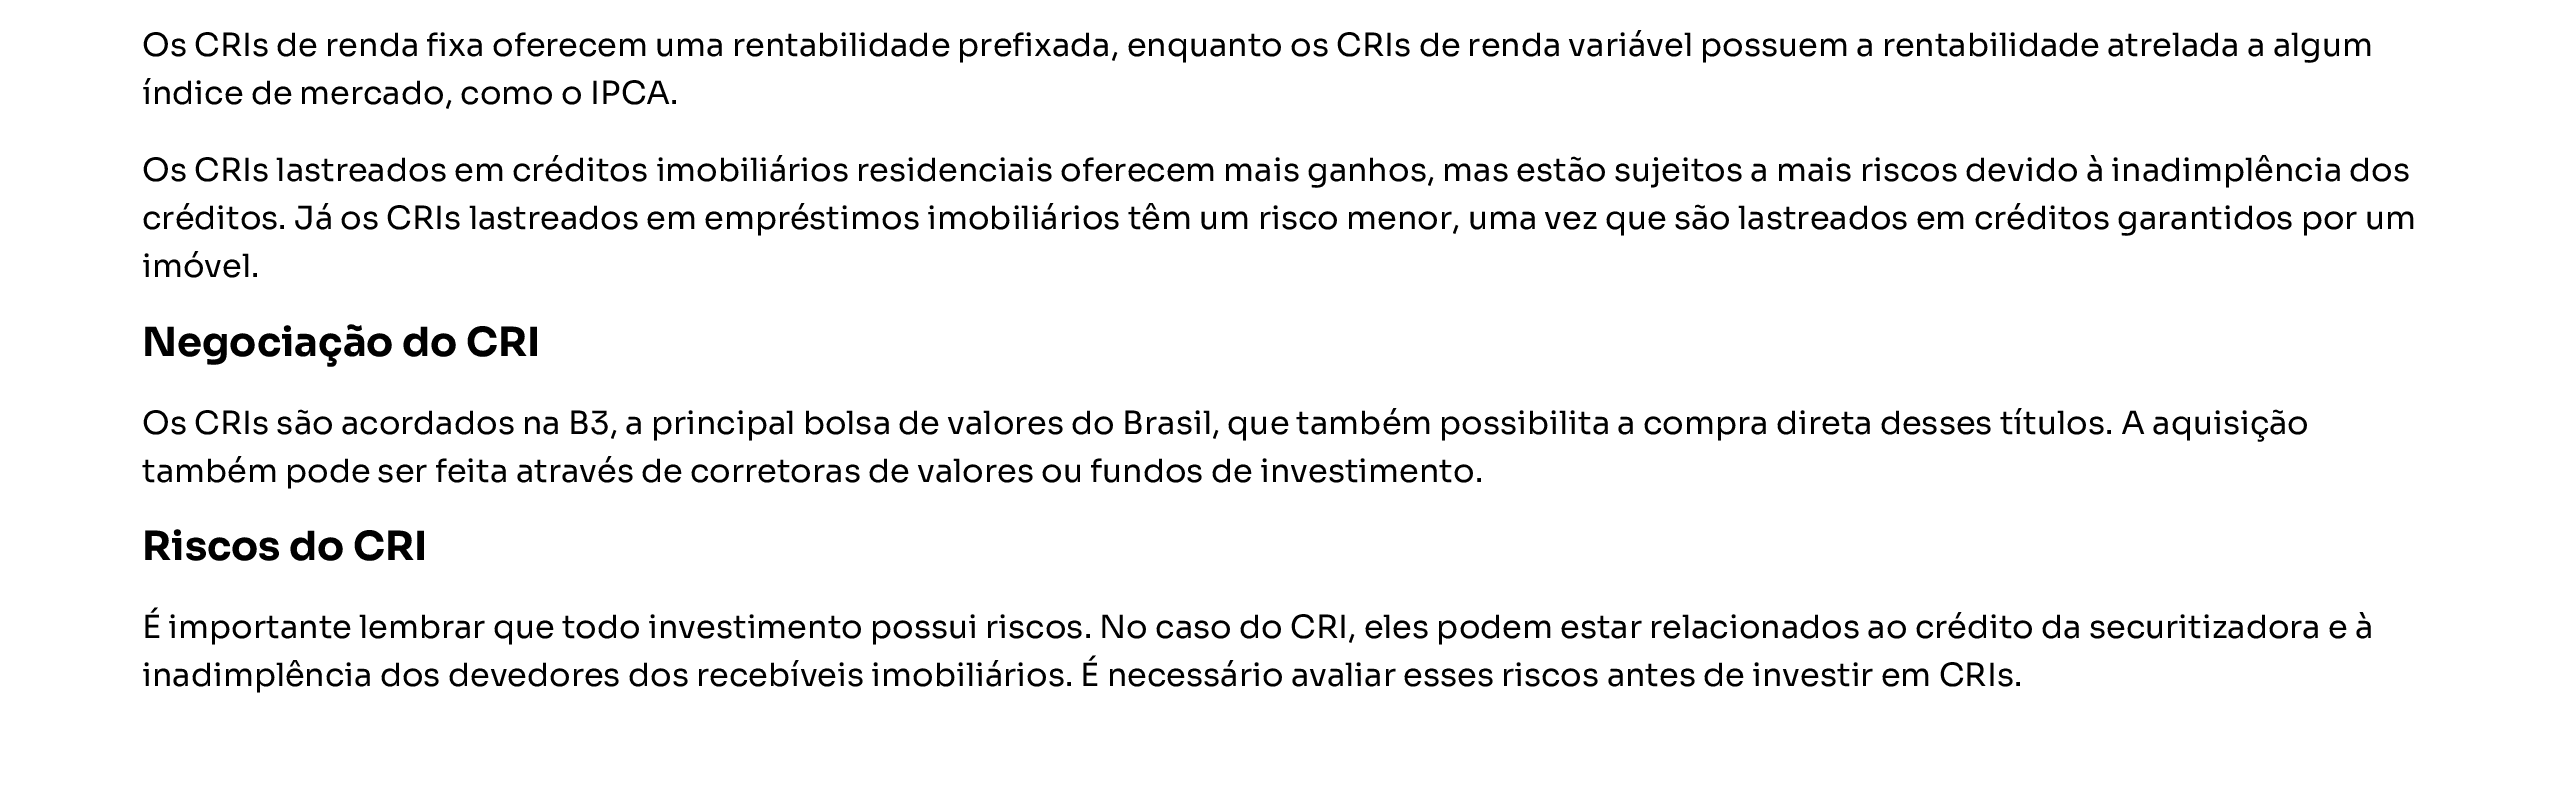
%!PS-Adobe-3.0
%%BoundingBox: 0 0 2563 807
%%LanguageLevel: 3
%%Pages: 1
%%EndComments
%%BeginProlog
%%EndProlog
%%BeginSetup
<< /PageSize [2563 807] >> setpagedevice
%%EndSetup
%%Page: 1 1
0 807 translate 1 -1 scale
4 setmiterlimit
1 setgray
0 0 2563 807 rectfill
/Sora-Regular [32 0 0 -32 0 0] selectfont
0 setgray
142 56 moveto (Os CRIs de renda fixa oferecem uma rentabilidade prefixada, enquanto os CRIs de renda variável possuem a rentabilidade atrelada a algum) show
142 104 moveto (índice de mercado, como o IPCA.) show
142 181 moveto (Os CRIs lastreados em créditos imobiliários residenciais oferecem mais ganhos, mas estão sujeitos a mais riscos devido à inadimplência dos) show
142 229 moveto (créditos. Já os CRIs lastreados em empréstimos imobiliários têm um risco menor, uma vez que são lastreados em créditos garantidos por um) show
142 277 moveto (imóvel.) show
/Sora-Bold [40 0 0 -40 0 0] selectfont
142 356 moveto (Negociação do CRI) show
/Sora-Regular [32 0 0 -32 0 0] selectfont
142 434 moveto (Os CRIs são acordados na B3, a principal bolsa de valores do Brasil, que também possibilita a compra direta desses títulos. A aquisição) show
142 482 moveto (também pode ser feita através de corretoras de valores ou fundos de investimento.) show
/Sora-Bold [40 0 0 -40 0 0] selectfont
142 560 moveto (Riscos do CRI) show
/Sora-Regular [32 0 0 -32 0 0] selectfont
142 638 moveto (É importante lembrar que todo investimento possui riscos. No caso do CRI, eles podem estar relacionados ao crédito da securitizadora e à) show
142 686 moveto (inadimplência dos devedores dos recebíveis imobiliários. É necessário avaliar esses riscos antes de investir em CRIs.) show
showpage
%%EOF
